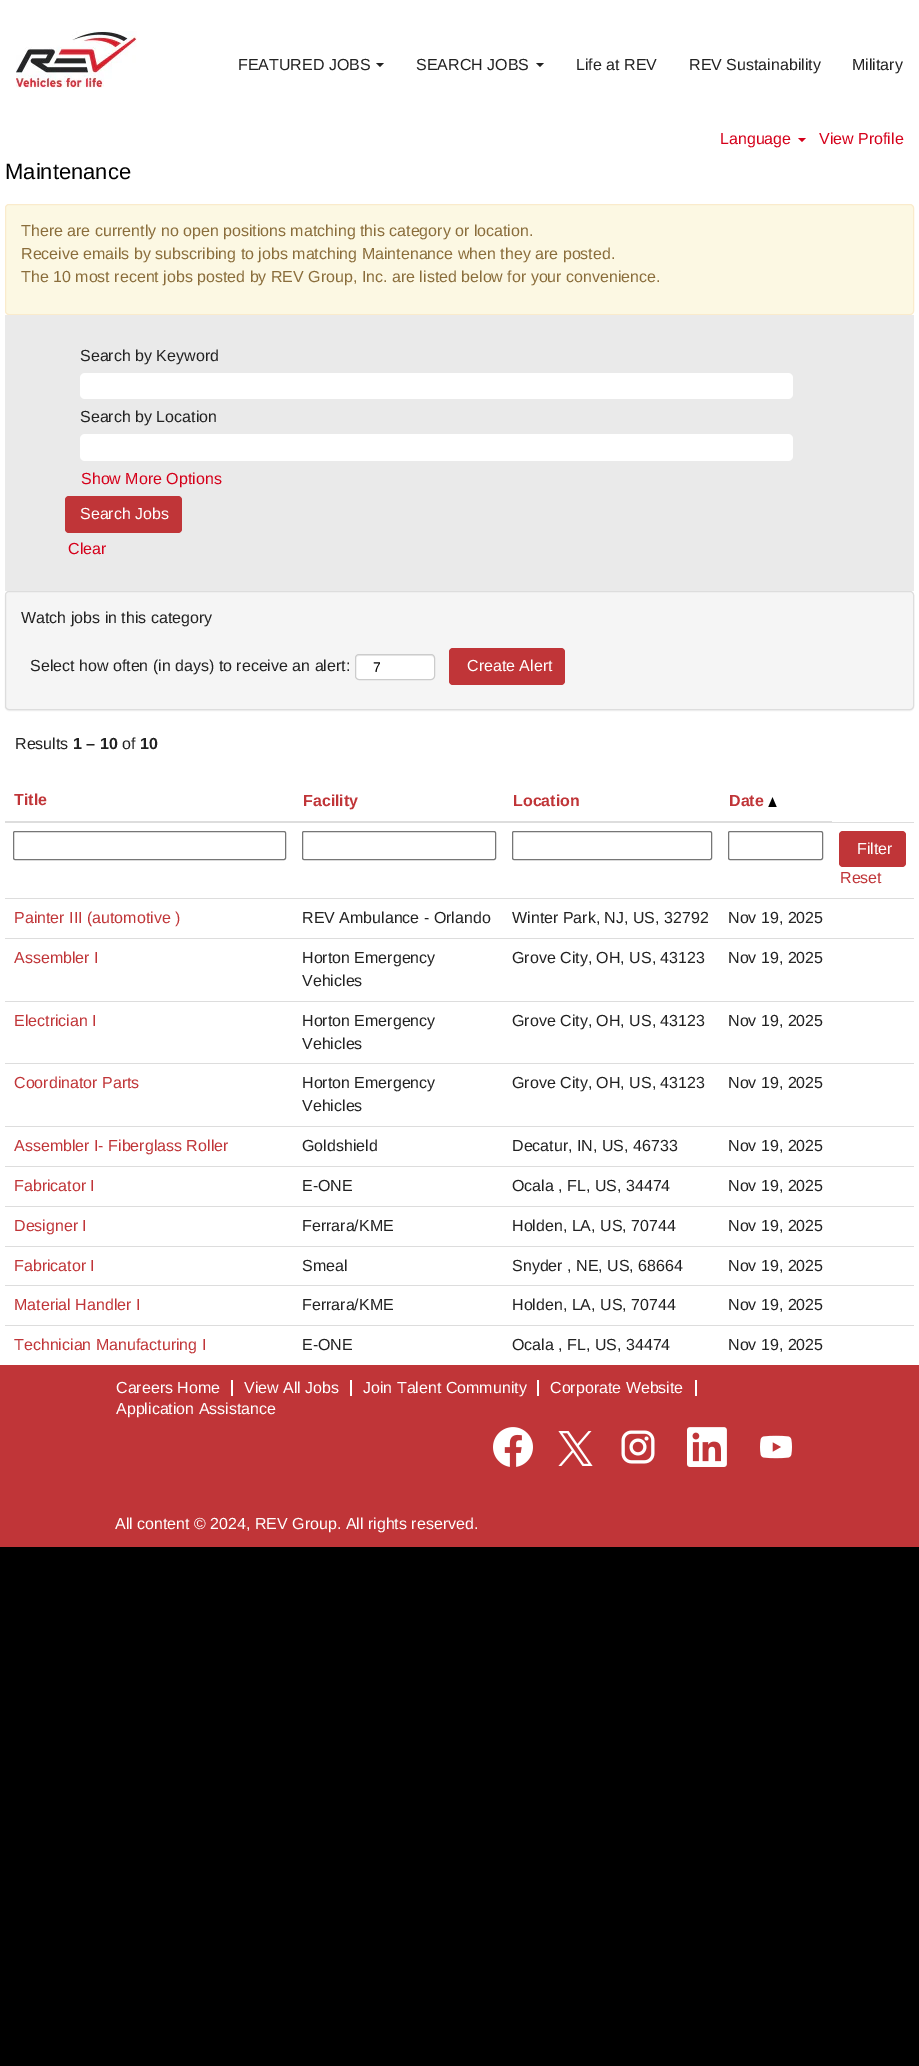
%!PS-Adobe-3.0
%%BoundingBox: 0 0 919 2066
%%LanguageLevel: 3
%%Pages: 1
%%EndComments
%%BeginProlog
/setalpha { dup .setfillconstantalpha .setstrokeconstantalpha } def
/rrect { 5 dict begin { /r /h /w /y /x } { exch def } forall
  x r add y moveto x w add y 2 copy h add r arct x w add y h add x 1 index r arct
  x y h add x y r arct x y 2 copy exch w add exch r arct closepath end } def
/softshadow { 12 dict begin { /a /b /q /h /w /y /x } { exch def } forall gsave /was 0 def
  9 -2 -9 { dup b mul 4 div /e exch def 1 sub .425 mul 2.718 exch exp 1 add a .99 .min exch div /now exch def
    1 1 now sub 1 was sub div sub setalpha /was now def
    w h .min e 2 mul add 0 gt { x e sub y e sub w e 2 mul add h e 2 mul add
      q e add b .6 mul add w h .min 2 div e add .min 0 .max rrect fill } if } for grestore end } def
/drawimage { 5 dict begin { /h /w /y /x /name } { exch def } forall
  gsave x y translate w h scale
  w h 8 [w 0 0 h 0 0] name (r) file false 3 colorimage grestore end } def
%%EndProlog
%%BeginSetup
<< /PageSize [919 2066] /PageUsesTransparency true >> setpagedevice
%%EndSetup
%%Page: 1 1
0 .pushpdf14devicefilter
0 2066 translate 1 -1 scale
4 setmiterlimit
0 setgray
0 0 919 2066 rectfill
1 setgray
0 0 919 1365 rectfill
(images/1.raw) 16 31 121 57 drawimage
0.133 setgray
newpath 376 63 moveto 384 63 lineto 380 67 lineto closepath fill
newpath 536 63 moveto 544 63 lineto 540 67 lineto closepath fill
0.835 0 0.102 setrgbcolor
newpath 798 138 moveto 806 138 lineto 802 142 lineto closepath fill
0.988 0.973 0.89 setrgbcolor
5.5 204.5 908 110 3.5 rrect gsave fill grestore
0.98 0.922 0.8 setrgbcolor
stroke
0.918 setgray
5 315 909 276 rectfill
1 setgray
80 373 713 26 5 rrect fill
80 434 713 27 5 rrect fill
0.753 0.208 0.22 setrgbcolor
65 496 117 37 4 rrect fill
0 setgray
5 592 909 119 4 0.5 0.05 softshadow
0.961 setgray
5.5 591.5 908 118 3.5 rrect gsave fill grestore
0.867 setgray
stroke
1 setgray
355 654 80 26 4 rrect fill
0.925 setgray
newpath 359 656 moveto 431 656 lineto 433 656 434 657 434 659 curveto 434 652 423 655 419 655 curveto 371 655 lineto 367 655 356 652 356 659 curveto 356 657 357 656 359 656 curveto closepath fill
0.8 setgray
355.5 654.5 79 25 3.5 rrect stroke
0.753 0.208 0.22 setrgbcolor
449 648 116 37 4 rrect fill
0.867 setgray
831 822 83 1 rectfill
5 821 827 2 rectfill
(images/2.raw) 768 797 9 10 drawimage
0.463 setgray
13.5 831.5 272 28 1.5 rrect stroke
302.5 831.5 193 28 1.5 rrect stroke
512.5 831.5 199 28 1.5 rrect stroke
728.5 831.5 94 28 1.5 rrect stroke
0.753 0.208 0.22 setrgbcolor
839 831 67 36 4 rrect fill
0.867 setgray
5 898 909 1 rectfill
5 938 909 1 rectfill
5 1001 909 1 rectfill
5 1063 909 1 rectfill
5 1126 909 1 rectfill
5 1166 909 1 rectfill
5 1206 909 1 rectfill
5 1246 909 1 rectfill
5 1285 909 1 rectfill
5 1325 909 1 rectfill
0.753 0.208 0.22 setrgbcolor
0 1365 919 182 rectfill
1 setgray
231 1380 2 16 rectfill
350 1380 2 16 rectfill
537 1380 2 16 rectfill
695 1380 2 16 rectfill
(images/3.raw) 493 1427 40 40 drawimage
(images/4.raw) 558 1431 35 35 drawimage
(images/5.raw) 621 1430 34 34 drawimage
(images/6.raw) 687 1427 40 40 drawimage
(images/7.raw) 760 1435 32 24 drawimage
/LiberationSans-Regular [16 0 0 -16 0 0] selectfont
0.133 setgray
238 70 moveto (FEATURED JOBS) show
416 70 moveto (SEARCH JOBS) show
576 70 moveto (Life at REV) show
689 70 moveto (REV Sustainability) show
852 70 moveto (Military) show
0.835 0 0.102 setrgbcolor
720 144 moveto (Language) show
819 144 moveto (View Profile) show
/LiberationSans-Regular [22 0 0 -22 0 0] selectfont
0 setgray
5 179 moveto (Maintenance) show
/LiberationSans-Regular [16 0 0 -16 0 0] selectfont
0.541 0.427 0.231 setrgbcolor
21 236 moveto (There are currently no open positions matching this category or location.) show
21 259 moveto (Receive emails by subscribing to jobs matching Maintenance when they are posted.) show
21 282 moveto (The 10 most recent jobs posted by REV Group, Inc. are listed below for your convenience.) show
0.133 setgray
80 361 moveto (Search by Keyword) show
80 422 moveto (Search by Location) show
0.835 0 0.102 setrgbcolor
81 484 moveto (Show More Options) show
1 setgray
80 519 moveto (Search Jobs) show
0.835 0 0.102 setrgbcolor
68 554 moveto (Clear) show
0.133 setgray
21 623 moveto (Watch jobs in this category) show
30 671 moveto (Select how often \(in days\) to receive an alert:) show
/LiberationSans-Regular [14 0 0 -14 0 0] selectfont
0 setgray
373 672 moveto (7) show
/LiberationSans-Regular [16 0 0 -16 0 0] selectfont
1 setgray
467 671 moveto (Create Alert) show
0.133 setgray
15 749 moveto (Results) show
/LiberationSans-Bold [16 0 0 -16 0 0] selectfont
73 749 moveto (1 – 10) show
/LiberationSans-Regular [16 0 0 -16 0 0] selectfont
122 749 moveto (of) show
/LiberationSans-Bold [16 0 0 -16 0 0] selectfont
140 749 moveto (10) show
0.753 0.208 0.22 setrgbcolor
14 805 moveto (Title) show
303 806 moveto (Facility) show
513 806 moveto (Location) show
729 806 moveto (Date) show
/LiberationSans-Regular [16 0 0 -16 0 0] selectfont
1 setgray
857 854 moveto (Filter) show
0.753 0.208 0.22 setrgbcolor
840 883 moveto (Reset) show
14 923 moveto (Painter III \(automotive \)) show
0.133 setgray
302 923 moveto (REV Ambulance - Orlando) show
512 923 moveto (Winter Park, NJ, US, 32792) show
728 923 moveto (Nov 19, 2025) show
0.753 0.208 0.22 setrgbcolor
14 963 moveto (Assembler I) show
0.133 setgray
302 963 moveto (Horton Emergency) show
302 986 moveto (Vehicles) show
512 963 moveto (Grove City, OH, US, 43123) show
728 963 moveto (Nov 19, 2025) show
0.753 0.208 0.22 setrgbcolor
14 1026 moveto (Electrician I) show
0.133 setgray
302 1026 moveto (Horton Emergency) show
302 1049 moveto (Vehicles) show
512 1026 moveto (Grove City, OH, US, 43123) show
728 1026 moveto (Nov 19, 2025) show
0.753 0.208 0.22 setrgbcolor
14 1088 moveto (Coordinator Parts) show
0.133 setgray
302 1088 moveto (Horton Emergency) show
302 1111 moveto (Vehicles) show
512 1088 moveto (Grove City, OH, US, 43123) show
728 1088 moveto (Nov 19, 2025) show
0.753 0.208 0.22 setrgbcolor
14 1151 moveto (Assembler I- Fiberglass Roller) show
0.133 setgray
302 1151 moveto (Goldshield) show
512 1151 moveto (Decatur, IN, US, 46733) show
728 1151 moveto (Nov 19, 2025) show
0.753 0.208 0.22 setrgbcolor
14 1191 moveto (Fabricator I) show
0.133 setgray
302 1191 moveto (E-ONE) show
512 1191 moveto (Ocala , FL, US, 34474) show
728 1191 moveto (Nov 19, 2025) show
0.753 0.208 0.22 setrgbcolor
14 1231 moveto (Designer I) show
0.133 setgray
302 1231 moveto (Ferrara/KME) show
512 1231 moveto (Holden, LA, US, 70744) show
728 1231 moveto (Nov 19, 2025) show
0.753 0.208 0.22 setrgbcolor
14 1271 moveto (Fabricator I) show
0.133 setgray
302 1271 moveto (Smeal) show
512 1271 moveto (Snyder , NE, US, 68664) show
728 1271 moveto (Nov 19, 2025) show
0.753 0.208 0.22 setrgbcolor
14 1310 moveto (Material Handler I) show
0.133 setgray
302 1310 moveto (Ferrara/KME) show
512 1310 moveto (Holden, LA, US, 70744) show
728 1310 moveto (Nov 19, 2025) show
0.753 0.208 0.22 setrgbcolor
14 1350 moveto (Technician Manufacturing I) show
0.133 setgray
302 1350 moveto (E-ONE) show
512 1350 moveto (Ocala , FL, US, 34474) show
728 1350 moveto (Nov 19, 2025) show
1 setgray
116 1393 moveto (Careers Home) show
244 1393 moveto (View All Jobs) show
363 1393 moveto (Join Talent Community) show
550 1393 moveto (Corporate Website) show
116 1414 moveto (Application Assistance) show
115 1529 moveto (All content © 2024, REV Group. All rights reserved.) show
.poppdf14devicefilter showpage
%%EOF
